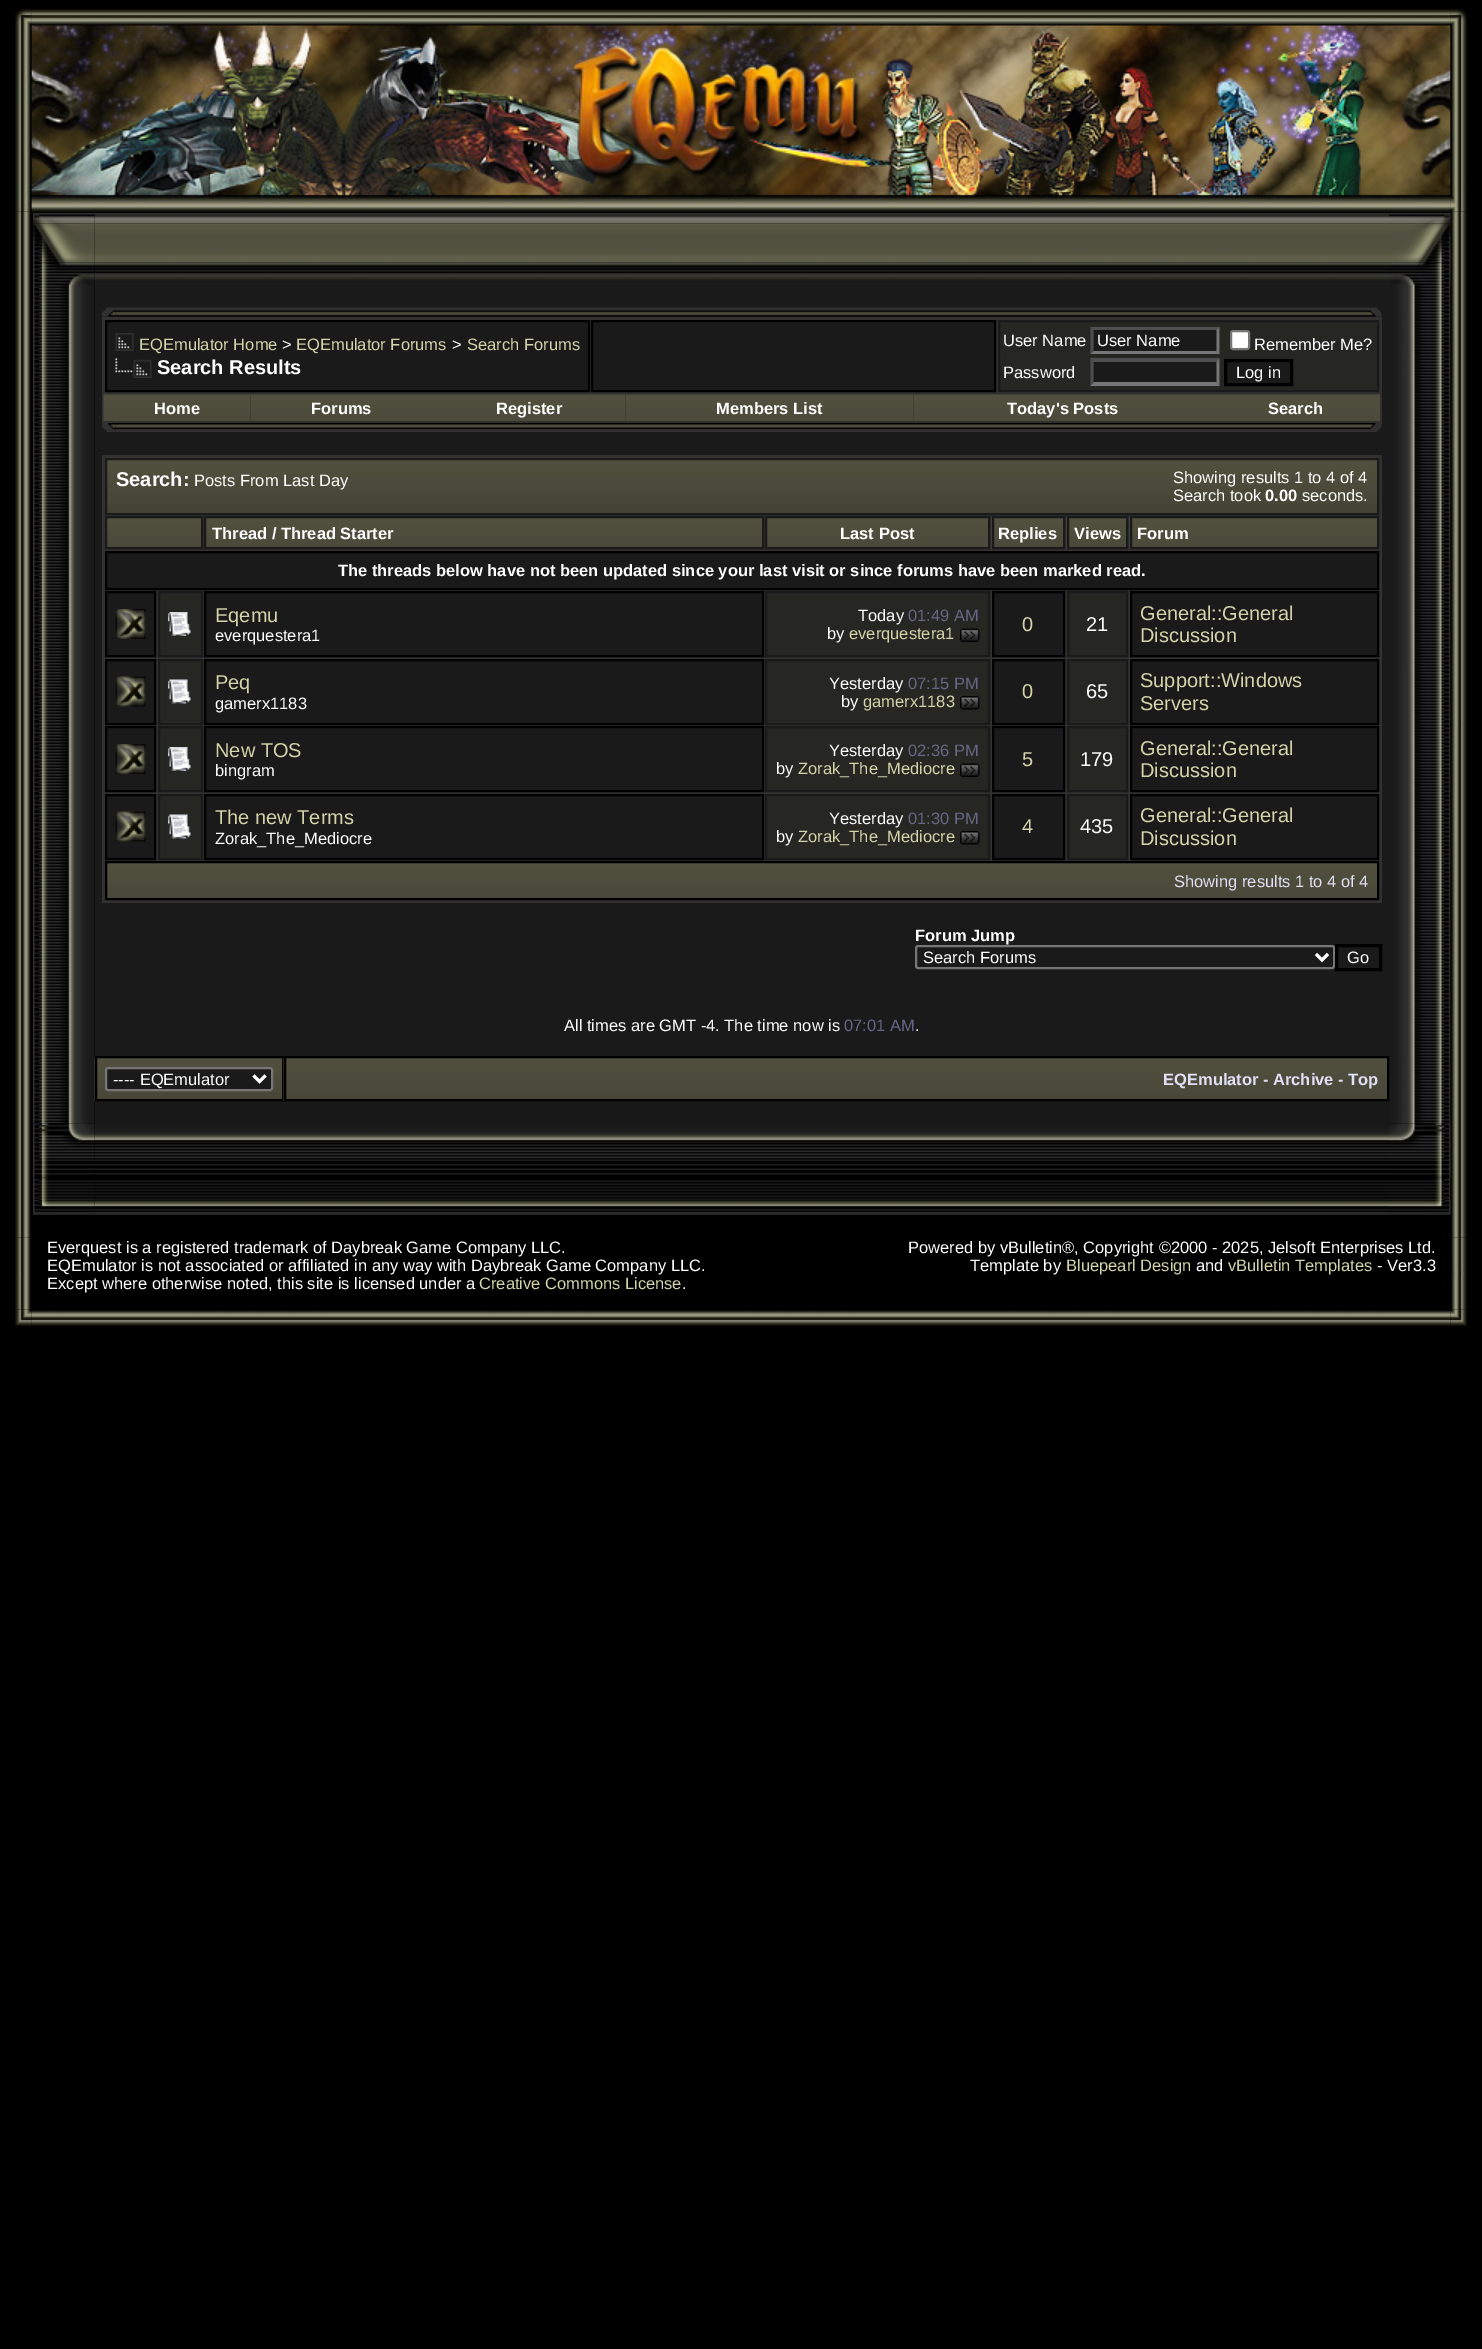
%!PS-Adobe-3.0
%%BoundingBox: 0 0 1482 2349
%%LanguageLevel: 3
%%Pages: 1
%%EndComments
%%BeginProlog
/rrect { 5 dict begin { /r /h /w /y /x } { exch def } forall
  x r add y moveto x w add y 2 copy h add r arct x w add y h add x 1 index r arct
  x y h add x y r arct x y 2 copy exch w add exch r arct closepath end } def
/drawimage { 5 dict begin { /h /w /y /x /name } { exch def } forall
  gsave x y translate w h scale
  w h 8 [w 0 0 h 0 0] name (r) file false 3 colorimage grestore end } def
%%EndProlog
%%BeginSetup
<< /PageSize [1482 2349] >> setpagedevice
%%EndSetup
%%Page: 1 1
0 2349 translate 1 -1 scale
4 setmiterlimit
0 setgray
0 0 1482 2349 rectfill
(images/2.raw) 31 9 1420 203 drawimage
(images/3.raw) 31 10 1420 202 drawimage
(images/5.raw) 15 211 16 1027 drawimage
(images/1.raw) 15 9 17 203 drawimage
(images/46.raw) 1389 285 62 839 drawimage
(images/52.raw) 1389 1177 62 23 drawimage
(images/56.raw) 1450 211 17 1027 drawimage
(images/4.raw) 1450 9 17 203 drawimage
(images/7.raw) 94 213 1295 11 drawimage
(images/10.raw) 94 223 1295 40 drawimage
(images/6.raw) 33 213 62 11 drawimage
(images/8.raw) 1389 213 62 11 drawimage
(images/13.raw) 94 262 1295 23 drawimage
(images/9.raw) 33 223 62 40 drawimage
(images/11.raw) 1389 223 62 40 drawimage
(images/12.raw) 33 262 62 23 drawimage
(images/14.raw) 1389 262 62 23 drawimage
(images/15.raw) 33 285 62 839 drawimage
0.094 setgray
95 1101 1294 23 rectfill
0.102 setgray
95 285 1294 771 rectfill
(images/17.raw) 115 307 1253 10 drawimage
(images/16.raw) 102 307 14 10 drawimage
(images/18.raw) 1368 307 14 10 drawimage
0.192 setgray
102 317 1280 78 rectfill
0.102 setgray
newpath 106 321 moveto 589 321 lineto 589 391 lineto 106 391 lineto closepath gsave fill grestore
0 setgray
2 setlinewidth
stroke
(images/19.raw) 115 333 19 18 drawimage
(images/20.raw) 115 358 37 20 drawimage
0.102 setgray
newpath 592 321 moveto 995 321 lineto 995 391 lineto 592 391 lineto closepath gsave fill grestore
0 setgray
stroke
0.149 0.149 0.137 setrgbcolor
newpath 999 321 moveto 1378 321 lineto 1378 391 lineto 999 391 lineto closepath gsave fill grestore
0.102 setgray
stroke
1091 327 129 27 rectfill
0.31 setgray
newpath 1090 327 moveto 1220 327 lineto 1216 330 lineto 1094 330 lineto closepath fill
0.463 setgray
newpath 1219.5 327 moveto 1219.5 354 lineto 1216.5 351 lineto 1216.5 330 lineto closepath fill
newpath 1220 354 moveto 1090 354 lineto 1094 351 lineto 1216 351 lineto closepath fill
0.31 setgray
newpath 1090.5 354 moveto 1090.5 327 lineto 1093.5 330 lineto 1093.5 351 lineto closepath fill
1 setgray
1231 331 18 18 2 rrect gsave fill grestore
0.463 setgray
stroke
0.102 setgray
1091 359 129 27 rectfill
0.31 setgray
newpath 1090 358 moveto 1220 358 lineto 1216 362 lineto 1094 362 lineto closepath fill
0.463 setgray
newpath 1219.5 358.5 moveto 1219.5 385.5 lineto 1216.5 382.5 lineto 1216.5 361.5 lineto closepath fill
newpath 1220 386 moveto 1090 386 lineto 1094 382 lineto 1216 382 lineto closepath fill
0.31 setgray
newpath 1090.5 385.5 moveto 1090.5 358.5 lineto 1093.5 361.5 lineto 1093.5 382.5 lineto closepath fill
0.102 setgray
newpath 1225.5 360.5 moveto 1291.5 360.5 lineto 1291.5 384.5 lineto 1225.5 384.5 lineto closepath gsave fill grestore
0 setgray
3 setlinewidth
stroke
0.192 setgray
1380 395 2 28 rectfill
102 422 1280 2 rectfill
102 395 2 28 rectfill
(images/21.raw) 103 394 148 28 drawimage
(images/22.raw) 250 394 182 28 drawimage
(images/23.raw) 432 394 194 28 drawimage
(images/24.raw) 625 394 289 28 drawimage
(images/25.raw) 913 394 299 28 drawimage
(images/26.raw) 1212 394 168 28 drawimage
(images/28.raw) 115 423 1253 9 drawimage
(images/27.raw) 102 423 14 9 drawimage
(images/29.raw) 1368 423 14 9 drawimage
102 455 1280 448 rectfill
(images/30.raw) 107 460 1270 53 drawimage
0.102 setgray
2 setlinewidth
106 459 1272 55 rectstroke
(images/31.raw) 107 518 94 29 drawimage
106 517 96 31 rectstroke
(images/32.raw) 206 518 556 29 drawimage
205 517 558 31 rectstroke
(images/33.raw) 767 518 221 29 drawimage
766 517 223 31 rectstroke
(images/34.raw) 991 517 72 32 drawimage
993 517 71 31 rectstroke
(images/35.raw) 1066 517 60 32 drawimage
1068 517 59 31 rectstroke
(images/36.raw) 1129 517 248 32 drawimage
1131 517 247 31 rectstroke
newpath 106 552 moveto 1378 552 lineto 1378 589 lineto 106 589 lineto closepath gsave fill grestore
0 setgray
stroke
0.102 setgray
newpath 106 592 moveto 155 592 lineto 155 656 lineto 106 656 lineto closepath gsave fill grestore
0 setgray
stroke
(images/37.raw) 115 609 31 30 drawimage
0.149 0.149 0.137 setrgbcolor
newpath 159 592 moveto 202 592 lineto 202 656 lineto 159 656 lineto closepath gsave fill grestore
0.102 setgray
stroke
(images/38.raw) 168 612 23 24 drawimage
newpath 205 592 moveto 763 592 lineto 763 656 lineto 205 656 lineto closepath gsave fill grestore
0 setgray
stroke
0.149 0.149 0.137 setrgbcolor
newpath 766 592 moveto 989 592 lineto 989 656 lineto 766 656 lineto closepath gsave fill grestore
0.102 setgray
stroke
(images/39.raw) 960 628 20 14 drawimage
newpath 993 592 moveto 1064 592 lineto 1064 656 lineto 993 656 lineto closepath gsave fill grestore
0 setgray
stroke
0.149 0.149 0.137 setrgbcolor
newpath 1068 592 moveto 1127 592 lineto 1127 656 lineto 1068 656 lineto closepath gsave fill grestore
0.102 setgray
stroke
newpath 1131 592 moveto 1378 592 lineto 1378 656 lineto 1131 656 lineto closepath gsave fill grestore
0 setgray
stroke
0.102 setgray
newpath 106 660 moveto 155 660 lineto 155 724 lineto 106 724 lineto closepath gsave fill grestore
0 setgray
stroke
(images/40.raw) 115 676 31 31 drawimage
0.149 0.149 0.137 setrgbcolor
newpath 159 660 moveto 202 660 lineto 202 724 lineto 159 724 lineto closepath gsave fill grestore
0.102 setgray
stroke
(images/41.raw) 168 679 23 25 drawimage
newpath 205 660 moveto 763 660 lineto 763 724 lineto 205 724 lineto closepath gsave fill grestore
0 setgray
stroke
0.149 0.149 0.137 setrgbcolor
newpath 766 660 moveto 989 660 lineto 989 724 lineto 766 724 lineto closepath gsave fill grestore
0.102 setgray
stroke
(images/42.raw) 960 696 20 14 drawimage
newpath 993 660 moveto 1064 660 lineto 1064 724 lineto 993 724 lineto closepath gsave fill grestore
0 setgray
stroke
0.149 0.149 0.137 setrgbcolor
newpath 1068 660 moveto 1127 660 lineto 1127 724 lineto 1068 724 lineto closepath gsave fill grestore
0.102 setgray
stroke
newpath 1131 660 moveto 1378 660 lineto 1378 724 lineto 1131 724 lineto closepath gsave fill grestore
0 setgray
stroke
0.102 setgray
newpath 106 727 moveto 155 727 lineto 155 791 lineto 106 791 lineto closepath gsave fill grestore
0 setgray
stroke
(images/37.raw) 115 744 31 30 drawimage
0.149 0.149 0.137 setrgbcolor
newpath 159 727 moveto 202 727 lineto 202 791 lineto 159 791 lineto closepath gsave fill grestore
0.102 setgray
stroke
(images/38.raw) 168 747 23 24 drawimage
newpath 205 727 moveto 763 727 lineto 763 791 lineto 205 791 lineto closepath gsave fill grestore
0 setgray
stroke
0.149 0.149 0.137 setrgbcolor
newpath 766 727 moveto 989 727 lineto 989 791 lineto 766 791 lineto closepath gsave fill grestore
0.102 setgray
stroke
(images/39.raw) 960 763 20 14 drawimage
newpath 993 727 moveto 1064 727 lineto 1064 791 lineto 993 791 lineto closepath gsave fill grestore
0 setgray
stroke
0.149 0.149 0.137 setrgbcolor
newpath 1068 727 moveto 1127 727 lineto 1127 791 lineto 1068 791 lineto closepath gsave fill grestore
0.102 setgray
stroke
newpath 1131 727 moveto 1378 727 lineto 1378 791 lineto 1131 791 lineto closepath gsave fill grestore
0 setgray
stroke
0.102 setgray
newpath 106 795 moveto 155 795 lineto 155 859 lineto 106 859 lineto closepath gsave fill grestore
0 setgray
stroke
(images/40.raw) 115 811 31 31 drawimage
0.149 0.149 0.137 setrgbcolor
newpath 159 795 moveto 202 795 lineto 202 859 lineto 159 859 lineto closepath gsave fill grestore
0.102 setgray
stroke
(images/41.raw) 168 814 23 25 drawimage
newpath 205 795 moveto 763 795 lineto 763 859 lineto 205 859 lineto closepath gsave fill grestore
0 setgray
stroke
0.149 0.149 0.137 setrgbcolor
newpath 766 795 moveto 989 795 lineto 989 859 lineto 766 859 lineto closepath gsave fill grestore
0.102 setgray
stroke
(images/42.raw) 960 831 20 14 drawimage
newpath 993 795 moveto 1064 795 lineto 1064 859 lineto 993 859 lineto closepath gsave fill grestore
0 setgray
stroke
0.149 0.149 0.137 setrgbcolor
newpath 1068 795 moveto 1127 795 lineto 1127 859 lineto 1068 859 lineto closepath gsave fill grestore
0.102 setgray
stroke
newpath 1131 795 moveto 1378 795 lineto 1378 859 lineto 1131 859 lineto closepath gsave fill grestore
0 setgray
stroke
(images/43.raw) 107 863 1270 35 drawimage
106 862 1272 37 rectstroke
0.463 setgray
916 946 418 22 2 rrect stroke
1 setgray
3 setlinewidth
newpath 1316 954 moveto 1322 960 lineto 1328 954 lineto stroke
0 setgray
1336.5 945.5 44 24 rectstroke
(images/44.raw) 94 1057 188 44 drawimage
2 setlinewidth
96 1057 187 43 rectstroke
0.102 setgray
106 1068 166 22 2 rrect gsave fill grestore
0.463 setgray
stroke
1 setgray
3 setlinewidth
newpath 253.5 1075.5 moveto 259.5 1081.5 lineto 265.5 1075.5 lineto stroke
(images/45.raw) 283 1057 1104 44 drawimage
0 setgray
2 setlinewidth
285 1057 1103 43 rectstroke
(images/48.raw) 94 1123 1295 52 drawimage
(images/50.raw) 33 1177 62 23 drawimage
(images/47.raw) 33 1123 62 55 drawimage
(images/49.raw) 1389 1123 62 55 drawimage
(images/51.raw) 94 1180 1295 20 drawimage
(images/54.raw) 94 1200 1295 15 drawimage
(images/53.raw) 33 1200 62 15 drawimage
(images/55.raw) 1389 1200 62 15 drawimage
(images/57.raw) 1450 721 11 6 drawimage
(images/58.raw) 15 1237 16 73 drawimage
0.518 0.518 0.435 setrgbcolor
20 1271 1 5 rectfill
(images/59.raw) 1451 1237 16 73 drawimage
(images/60.raw) 1453 1270 8 6 drawimage
(images/62.raw) 31 1310 1420 16 drawimage
(images/61.raw) 15 1309 17 17 drawimage
(images/63.raw) 1450 1309 17 17 drawimage
/LiberationSans-Regular [16.5 0 0 -16.5 0 0] selectfont
0.827 0.831 0.667 setrgbcolor
139 350 moveto (EQEmulator Home) show
1 setgray
282 350 moveto (>) show
0.827 0.831 0.667 setrgbcolor
296 350 moveto (EQEmulator Forums) show
1 setgray
452 350 moveto (>) show
0.827 0.831 0.667 setrgbcolor
467 350 moveto (Search Forums) show
/LiberationSans-Bold [20 0 0 -20 0 0] selectfont
1 setgray
157 374 moveto (Search Results) show
/LiberationSans-Regular [16.5 0 0 -16.5 0 0] selectfont
1003 346 moveto (User Name) show
1097 346 moveto (User Name) show
1254 350 moveto (Remember Me?) show
1003 378 moveto (Password) show
1236 378 moveto (Log in) show
/LiberationSans-Bold [16.5 0 0 -16.5 0 0] selectfont
154 414 moveto (Home) show
311 414 moveto (Forums) show
496 414 moveto (Register) show
716 414 moveto (Members List) show
1007 414 moveto (Today's Posts) show
1268 414 moveto (Search) show
/LiberationSans-Bold [20 0 0 -20 0 0] selectfont
116 486 moveto (Search:) show
/LiberationSans-Regular [16.5 0 0 -16.5 0 0] selectfont
194 486 moveto (Posts From Last Day) show
1173 483 moveto (Showing results 1 to 4 of 4) show
1173 501 moveto (Search took) show
/LiberationSans-Bold [16.5 0 0 -16.5 0 0] selectfont
1265 501 moveto (0.00) show
/LiberationSans-Regular [16.5 0 0 -16.5 0 0] selectfont
1302 501 moveto (seconds.) show
/LiberationSans-Bold [16.5 0 0 -16.5 0 0] selectfont
212 539 moveto (Thread / Thread Starter) show
840 539 moveto (Last Post) show
998 539 moveto (Replies) show
1074 539 moveto (Views) show
1137 539 moveto (Forum) show
338 576 moveto (The threads below have not been updated since your last visit or since forums have been marked read.) show
/LiberationSans-Regular [20 0 0 -20 0 0] selectfont
0.827 0.831 0.667 setrgbcolor
215 622 moveto (Eqemu) show
/LiberationSans-Regular [16.5 0 0 -16.5 0 0] selectfont
1 setgray
215 641 moveto (everquestera1) show
858 621 moveto (Today) show
0.4 0.4 0.525 setrgbcolor
908 621 moveto (01:49 AM) show
1 setgray
827 639 moveto (by) show
0.827 0.831 0.667 setrgbcolor
849 639 moveto (everquestera1) show
/LiberationSans-Regular [20 0 0 -20 0 0] selectfont
1022 631 moveto (0) show
1 setgray
1086 631 moveto (21) show
0.827 0.831 0.667 setrgbcolor
1140 620 moveto (General::General) show
1140 642 moveto (Discussion) show
215 689 moveto (Peq) show
/LiberationSans-Regular [16.5 0 0 -16.5 0 0] selectfont
1 setgray
215 709 moveto (gamerx1183) show
829 689 moveto (Yesterday) show
0.4 0.4 0.525 setrgbcolor
908 689 moveto (07:15 PM) show
1 setgray
841 707 moveto (by) show
0.827 0.831 0.667 setrgbcolor
863 707 moveto (gamerx1183) show
/LiberationSans-Regular [20 0 0 -20 0 0] selectfont
1022 698 moveto (0) show
1 setgray
1086 698 moveto (65) show
0.827 0.831 0.667 setrgbcolor
1140 687 moveto (Support::Windows) show
1140 710 moveto (Servers) show
215 757 moveto (New TOS) show
/LiberationSans-Regular [16.5 0 0 -16.5 0 0] selectfont
1 setgray
215 776 moveto (bingram) show
829 756 moveto (Yesterday) show
0.4 0.4 0.525 setrgbcolor
908 756 moveto (02:36 PM) show
1 setgray
776 774 moveto (by) show
0.827 0.831 0.667 setrgbcolor
798 774 moveto (Zorak_The_Mediocre) show
/LiberationSans-Regular [20 0 0 -20 0 0] selectfont
1022 766 moveto (5) show
1 setgray
1080 766 moveto (179) show
0.827 0.831 0.667 setrgbcolor
1140 755 moveto (General::General) show
1140 777 moveto (Discussion) show
215 824 moveto (The new Terms) show
/LiberationSans-Regular [16.5 0 0 -16.5 0 0] selectfont
1 setgray
215 844 moveto (Zorak_The_Mediocre) show
829 824 moveto (Yesterday) show
0.4 0.4 0.525 setrgbcolor
908 824 moveto (01:30 PM) show
1 setgray
776 842 moveto (by) show
0.827 0.831 0.667 setrgbcolor
798 842 moveto (Zorak_The_Mediocre) show
/LiberationSans-Regular [20 0 0 -20 0 0] selectfont
1022 833 moveto (4) show
1 setgray
1080 833 moveto (435) show
0.827 0.831 0.667 setrgbcolor
1140 822 moveto (General::General) show
1140 845 moveto (Discussion) show
/LiberationSans-Regular [16.5 0 0 -16.5 0 0] selectfont
0.878 0.878 0.965 setrgbcolor
1174 887 moveto (Showing results 1 to 4 of 4) show
/LiberationSans-Bold [16.5 0 0 -16.5 0 0] selectfont
1 setgray
915 941 moveto (Forum Jump) show
/LiberationSans-Regular [16.5 0 0 -16.5 0 0] selectfont
923 963 moveto (Search Forums) show
1347 963 moveto (Go) show
564 1031 moveto (All times are GMT -4. The time now is) show
0.4 0.4 0.525 setrgbcolor
844 1031 moveto (07:01 AM) show
1 setgray
915 1031 moveto (.) show
113 1085 moveto (---- EQEmulator) show
/LiberationSans-Bold [16.5 0 0 -16.5 0 0] selectfont
0.878 0.878 0.965 setrgbcolor
1163 1085 moveto (EQEmulator - Archive - Top) show
/LiberationSans-Regular [16.5 0 0 -16.5 0 0] selectfont
1 setgray
47 1253 moveto (Everquest is a registered trademark of Daybreak Game Company LLC.) show
47 1271 moveto (EQEmulator is not associated or affiliated in any way with Daybreak Game Company LLC.) show
47 1289 moveto (Except where otherwise noted, this site is licensed under a) show
0.827 0.831 0.667 setrgbcolor
479 1289 moveto (Creative Commons License) show
1 setgray
682 1289 moveto (.) show
908 1253 moveto (Powered by vBulletin®, Copyright ©2000 - 2025, Jelsoft Enterprises Ltd.) show
970 1271 moveto (Template by) show
0.827 0.831 0.667 setrgbcolor
1066 1271 moveto (Bluepearl Design) show
1 setgray
1196 1271 moveto (and) show
0.827 0.831 0.667 setrgbcolor
1228 1271 moveto (vBulletin Templates) show
1 setgray
1377 1271 moveto (- Ver3.3) show
showpage
%%EOF
